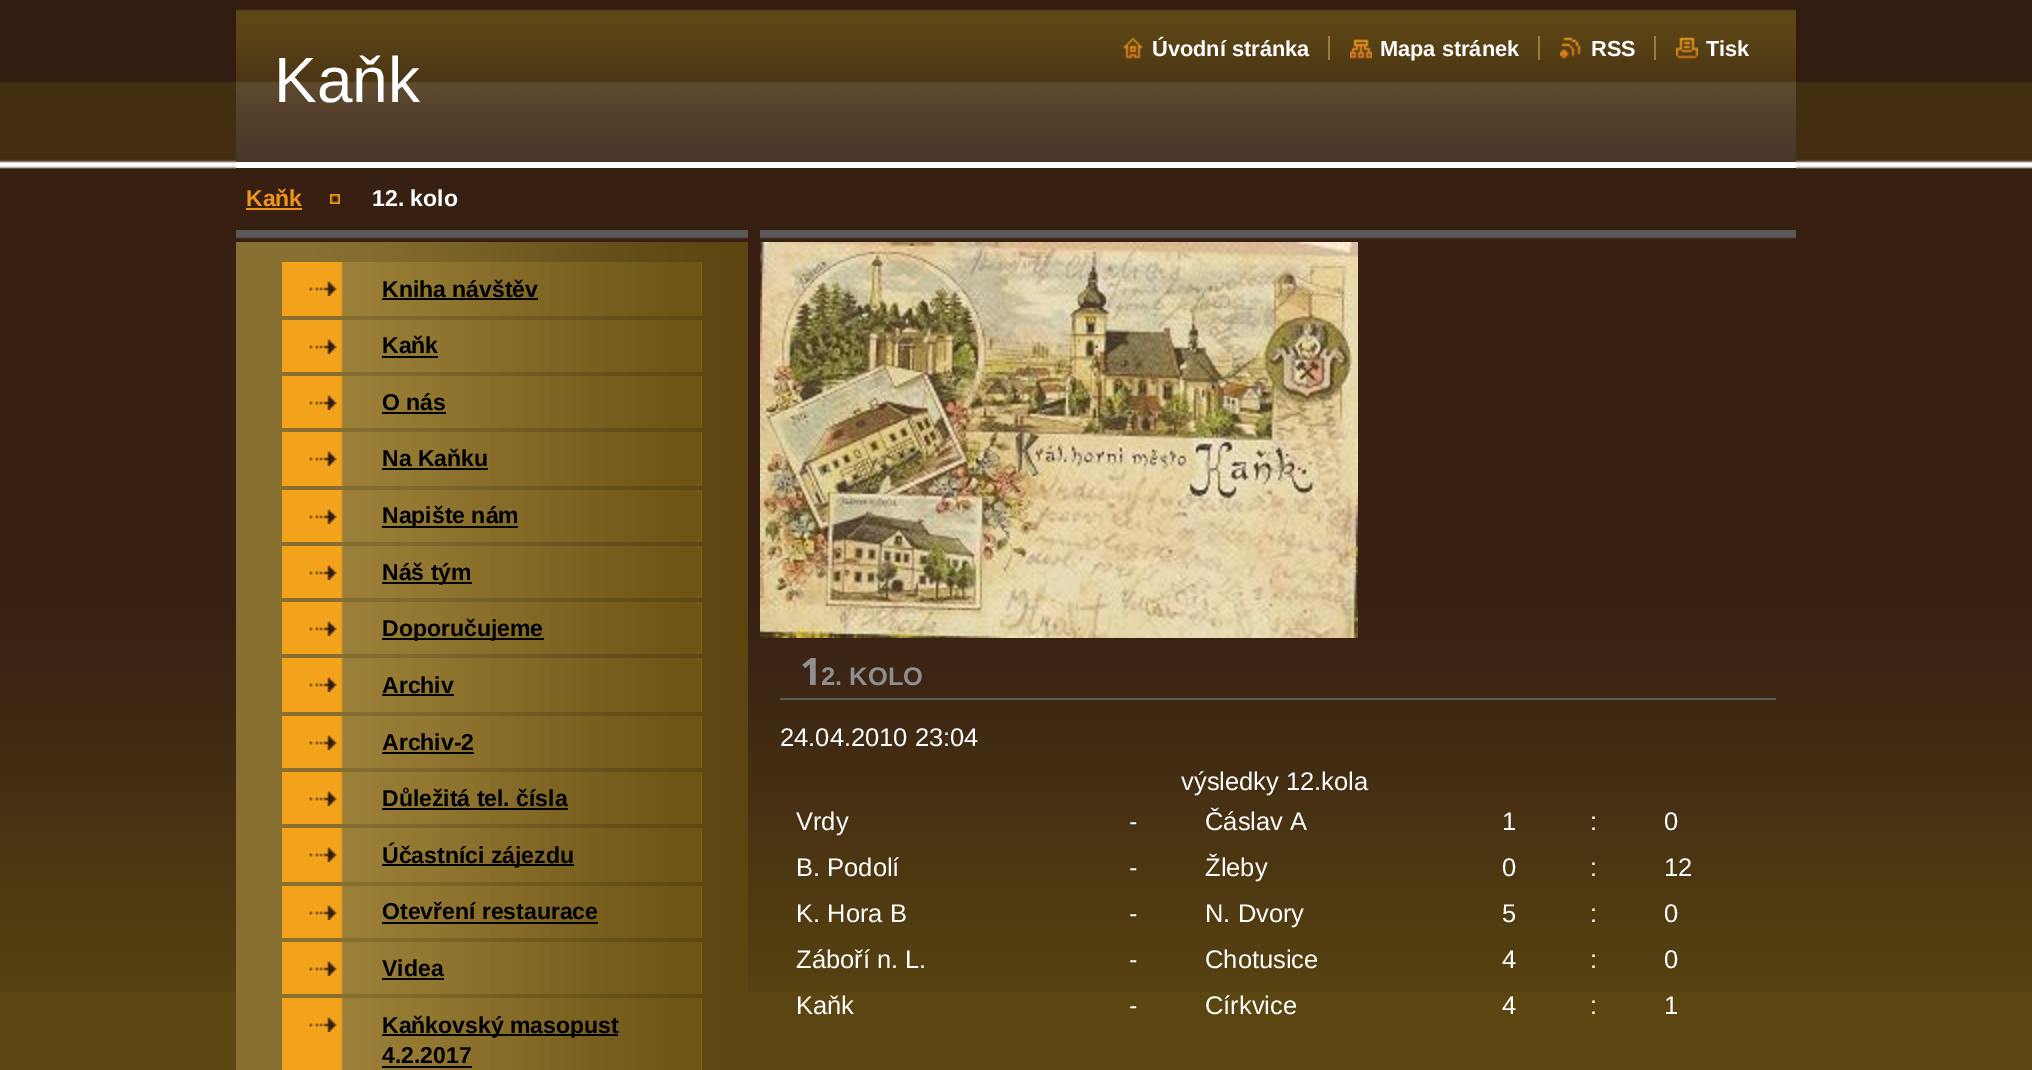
%!PS-Adobe-3.0
%%BoundingBox: 0 0 2032 1070
%%LanguageLevel: 3
%%Pages: 1
%%EndComments
%%BeginProlog
/drawimage { 5 dict begin { /h /w /y /x /name } { exch def } forall
  gsave x y translate w h scale
  w h 8 [w 0 0 h 0 0] name (r) file false 3 colorimage grestore end } def
%%EndProlog
%%BeginSetup
<< /PageSize [2032 1070] >> setpagedevice
%%EndSetup
%%Page: 1 1
0 1070 translate 1 -1 scale
4 setmiterlimit
0.357 0.275 0.067 setrgbcolor
0 0 2032 1070 rectfill
(images/1.raw) 0 0 2032 992 drawimage
(images/2.raw) 236 0 1560 162 drawimage
1 setgray
236 162 1560 6 rectfill
(images/3.raw) 1123 37 20 22 drawimage
(images/4.raw) 1350 39 22 20 drawimage
0.604 0.494 0.216 setrgbcolor
1328 36 2 24 rectfill
(images/5.raw) 1560 37 21 22 drawimage
1538 36 2 24 rectfill
(images/6.raw) 1676 37 22 22 drawimage
1654 36 2 24 rectfill
0.216 0.125 0.071 setrgbcolor
236 168 1560 2 rectfill
0.929 0.584 0.11 setrgbcolor
246 208 56 2 rectfill
(images/7.raw) 330 194 10 10 drawimage
(images/8.raw) 236 230 512 12 drawimage
(images/9.raw) 236 242 512 828 drawimage
(images/10.raw) 282 262 420 54 drawimage
(images/11.raw) 309 281 28 15 drawimage
0 setgray
382 298 156 2 rectfill
(images/12.raw) 282 320 420 52 drawimage
(images/11.raw) 309 339 28 15 drawimage
382 356 56 2 rectfill
(images/12.raw) 282 376 420 52 drawimage
(images/11.raw) 309 395 28 15 drawimage
382 412 64 2 rectfill
(images/10.raw) 282 432 420 54 drawimage
(images/11.raw) 309 451 28 15 drawimage
382 468 106 2 rectfill
(images/12.raw) 282 490 420 52 drawimage
(images/11.raw) 309 509 28 15 drawimage
382 526 136 2 rectfill
(images/12.raw) 282 546 420 52 drawimage
(images/11.raw) 309 565 28 15 drawimage
382 582 90 2 rectfill
(images/12.raw) 282 602 420 52 drawimage
(images/11.raw) 309 621 28 15 drawimage
382 638 162 2 rectfill
(images/10.raw) 282 658 420 54 drawimage
(images/11.raw) 309 677 28 15 drawimage
382 694 72 2 rectfill
(images/12.raw) 282 716 420 52 drawimage
(images/11.raw) 309 735 28 15 drawimage
382 752 92 2 rectfill
(images/12.raw) 282 772 420 52 drawimage
(images/11.raw) 309 791 28 15 drawimage
382 808 186 2 rectfill
(images/10.raw) 282 828 420 54 drawimage
(images/11.raw) 309 847 28 15 drawimage
382 864 192 2 rectfill
(images/12.raw) 282 886 420 52 drawimage
(images/11.raw) 309 905 28 15 drawimage
382 922 216 2 rectfill
(images/12.raw) 282 942 420 52 drawimage
(images/11.raw) 309 961 28 15 drawimage
382 978 62 2 rectfill
(images/13.raw) 282 998 420 72 drawimage
(images/11.raw) 309 1017 28 15 drawimage
382 1034 236 2 rectfill
382 1066 90 2 rectfill
(images/14.raw) 760 230 1036 9 drawimage
(images/15.raw) 760 242 598 396 drawimage
0.353 0.345 0.349 setrgbcolor
780 698 996 2 rectfill
/LiberationSans-Bold [21.75 0 0 -21.75 0 0] selectfont
1 setgray
1152 56 moveto (Úvodní stránka) show
1380 56 moveto (Mapa stránek) show
1591 56 moveto (RSS) show
1706 56 moveto (Tisk) show
/LiberationSans-Regular [64 0 0 -64 0 0] selectfont
274 102 moveto (Kaňk) show
/LiberationSans-Bold [23 0 0 -23 0 0] selectfont
0.929 0.584 0.11 setrgbcolor
246 206 moveto (Kaňk) show
1 setgray
372 206 moveto (12. kolo) show
0 setgray
382 297 moveto (Kniha návštěv) show
382 353 moveto (Kaňk) show
382 410 moveto (O nás) show
382 466 moveto (Na Kaňku) show
382 523 moveto (Napište nám) show
382 580 moveto (Náš tým) show
382 636 moveto (Doporučujeme) show
382 693 moveto (Archiv) show
382 750 moveto (Archiv-2) show
382 806 moveto (Důležitá tel. čísla) show
382 863 moveto (Účastníci zájezdu) show
382 919 moveto (Otevření restaurace) show
382 976 moveto (Videa) show
382 1033 moveto (Kaňkovský masopust) show
382 1063 moveto (4.2.2017) show
/NotoSans-Bold [38 0 0 -38 0 0] selectfont
0.561 setgray
800 685 moveto (1) show
/LiberationSans-Bold [25.5 0 0 -25.5 0 0] selectfont
821 685 moveto (2. KOLO) show
/LiberationSans-Regular [25.5 0 0 -25.5 0 0] selectfont
1 setgray
780 746 moveto (24.04.2010 23:04) show
1181 790 moveto (výsledky 12.kola) show
796 830 moveto (Vrdy) show
1129 830 moveto (-) show
1205 830 moveto (Čáslav A) show
1502 830 moveto (1) show
1590 830 moveto (:) show
1664 830 moveto (0) show
796 876 moveto (B. Podolí) show
1129 876 moveto (-) show
1205 876 moveto (Žleby) show
1502 876 moveto (0) show
1590 876 moveto (:) show
1664 876 moveto (12) show
796 922 moveto (K. Hora B) show
1129 922 moveto (-) show
1205 922 moveto (N. Dvory) show
1502 922 moveto (5) show
1590 922 moveto (:) show
1664 922 moveto (0) show
796 968 moveto (Záboří n. L.) show
1129 968 moveto (-) show
1205 968 moveto (Chotusice) show
1502 968 moveto (4) show
1590 968 moveto (:) show
1664 968 moveto (0) show
796 1014 moveto (Kaňk) show
1129 1014 moveto (-) show
1205 1014 moveto (Církvice) show
1502 1014 moveto (4) show
1590 1014 moveto (:) show
1664 1014 moveto (1) show
showpage
%%EOF
